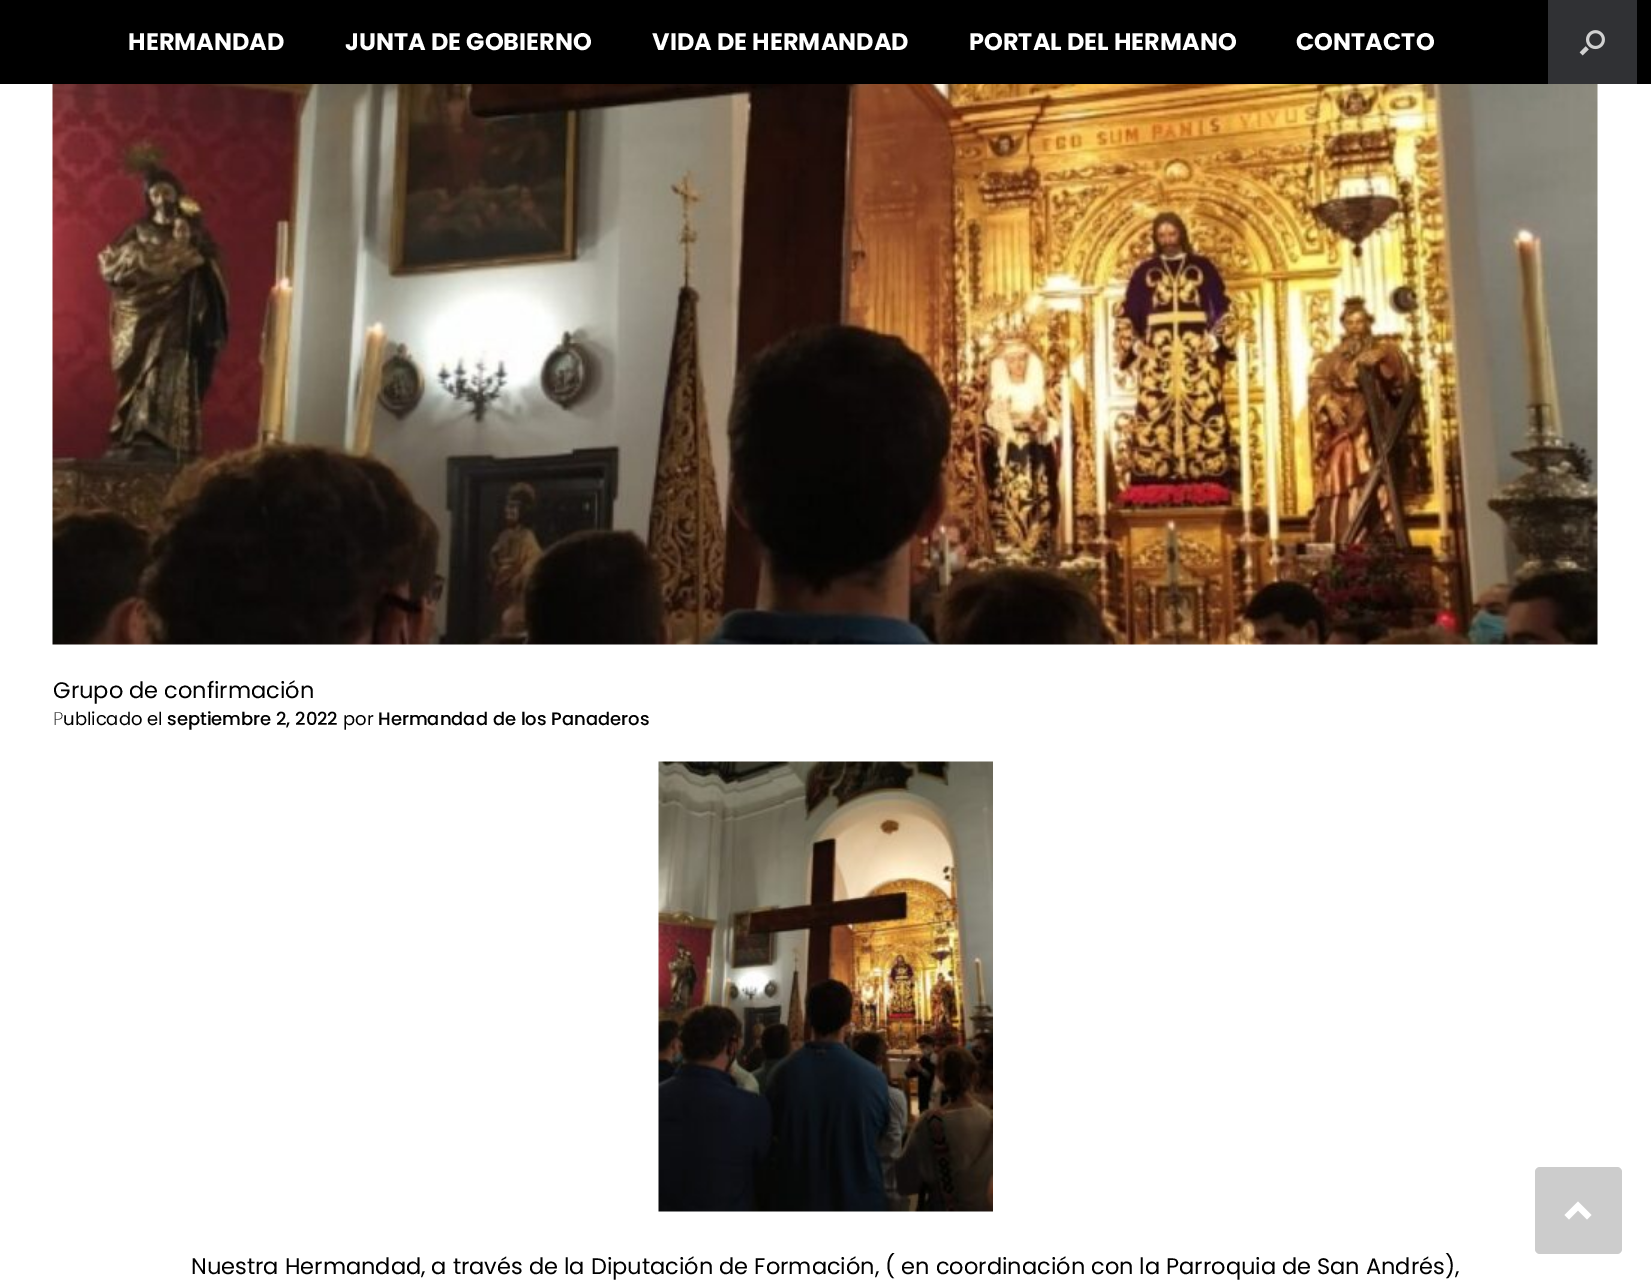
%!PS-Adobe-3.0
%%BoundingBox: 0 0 1651 1284
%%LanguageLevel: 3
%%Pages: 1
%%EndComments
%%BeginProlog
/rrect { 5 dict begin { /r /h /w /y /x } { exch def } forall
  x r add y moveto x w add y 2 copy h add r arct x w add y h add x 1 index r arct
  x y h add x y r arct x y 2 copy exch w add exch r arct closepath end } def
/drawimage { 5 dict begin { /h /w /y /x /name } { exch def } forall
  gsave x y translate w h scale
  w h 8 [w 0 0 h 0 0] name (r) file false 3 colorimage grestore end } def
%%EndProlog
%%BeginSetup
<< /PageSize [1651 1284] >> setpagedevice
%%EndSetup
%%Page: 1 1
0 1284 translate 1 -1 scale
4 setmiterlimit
1 setgray
0 0 1651 1284 rectfill
0 setgray
0 0 1651 84 rectfill
0.188 0.192 0.204 setrgbcolor
1548 0 89 84 rectfill
(images/1.raw) 1579 30 26 26 drawimage
(images/2.raw) 52 84 1546 561 drawimage
(images/3.raw) 658 761 335 451 drawimage
0.8 setgray
1535 1167 87 87 5 rrect fill
1 setgray
newpath 1591.5 1215 moveto 1578 1201.5 lineto 1564.5 1215 lineto 1569 1219.5 lineto 1578 1210.5 lineto 1587 1219.5 lineto closepath fill
/Poppins-Bold [24 0 0 -24 0 0] selectfont
128 50 moveto (HERMANDAD) show
345 50 moveto (JUNTA DE GOBIERNO) show
652 50 moveto (VIDA DE HERMANDAD) show
969 50 moveto (PORTAL DEL HERMANO) show
1296 50 moveto (CONTACTO) show
/Poppins-Regular [22.5 0 0 -22.5 0 0] selectfont
0 setgray
53 698 moveto (Grupo de confirmación) show
/NotoSans-ExtraLight [18 0 0 -18 0 0] selectfont
53 725 moveto (P) show
/Poppins-Regular [18 0 0 -18 0 0] selectfont
63 725 moveto (ublicado el) show
/Poppins-Medium [18 0 0 -18 0 0] selectfont
167 725 moveto (septiembre 2, 2022) show
/Poppins-Regular [18 0 0 -18 0 0] selectfont
343 725 moveto (por) show
/Poppins-Medium [18 0 0 -18 0 0] selectfont
378 725 moveto (Hermandad de los Panaderos) show
/Poppins-Regular [22.5 0 0 -22.5 0 0] selectfont
191 1274 moveto (Nuestra Hermandad, a través de la Diputación de Formación, \( en coordinación con la Parroquia de San Andrés\),) show
showpage
%%EOF
